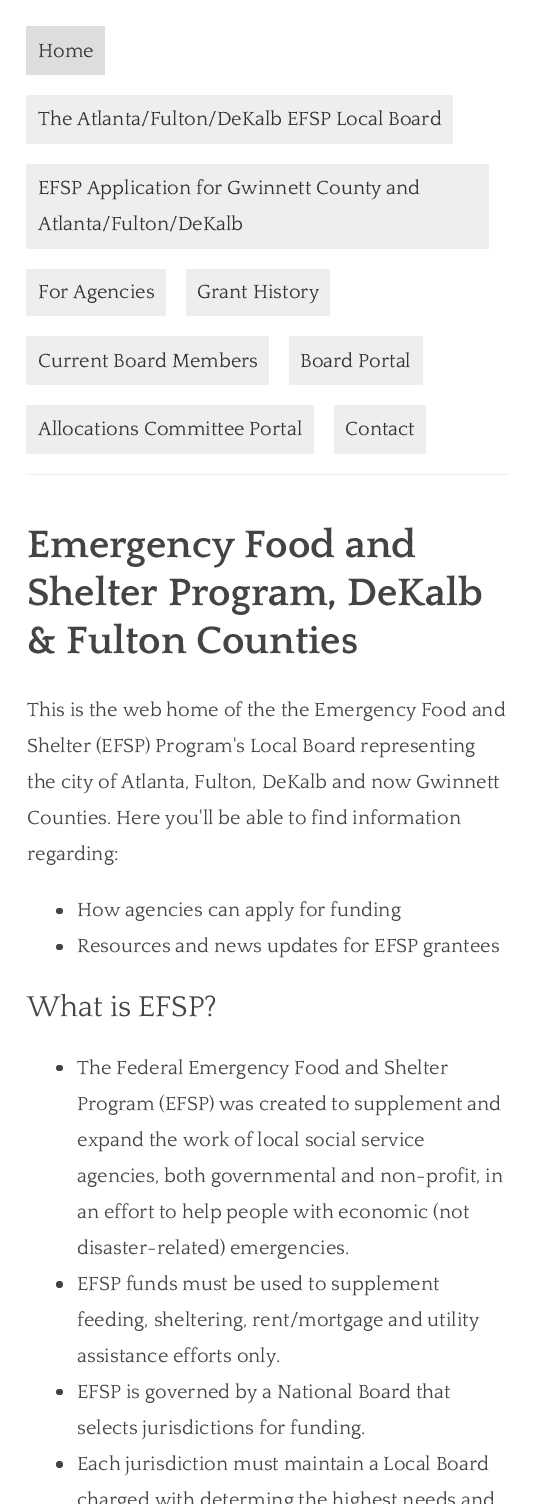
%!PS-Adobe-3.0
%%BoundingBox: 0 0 535 1504
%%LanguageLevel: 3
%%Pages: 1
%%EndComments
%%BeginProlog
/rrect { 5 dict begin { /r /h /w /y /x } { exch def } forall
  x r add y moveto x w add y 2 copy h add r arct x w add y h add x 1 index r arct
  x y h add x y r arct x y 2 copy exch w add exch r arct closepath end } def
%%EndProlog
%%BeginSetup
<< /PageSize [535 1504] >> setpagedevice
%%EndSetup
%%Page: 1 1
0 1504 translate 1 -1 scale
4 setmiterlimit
1 setgray
0 0 535 1504 rectfill
0.867 setgray
26 26 79 49 rectfill
0.933 setgray
26 95 427 49 rectfill
26 164 463 85 rectfill
26 269 140 47 rectfill
186 269 144 47 rectfill
26 336 243 49 rectfill
289 336 134 49 rectfill
26 405 288 49 rectfill
334 405 92 49 rectfill
26 474 483 1 rectfill
0.267 setgray
56 908 7 6 3 rrect fill
56 944 7 6 3 rrect fill
56 1065 7 6 3 rrect fill
newpath 59.5 1284.5 3.5 0 360 arc closepath fill
56 1389 7 6 3 rrect fill
newpath 59.5 1464.5 3.5 0 360 arc closepath fill
/Quattrocento-Regular [20 0 0 -20 0 0] selectfont
0.2 setgray
38 57 moveto (Home) show
38 125 moveto (The Atlanta/Fulton/DeKalb EFSP Local Board) show
38 194 moveto (EFSP Application for Gwinnett County and) show
38 230 moveto (Atlanta/Fulton/DeKalb) show
38 298 moveto (For Agencies) show
197 298 moveto (Grant History) show
38 367 moveto (Current Board Members) show
300 367 moveto (Board Portal) show
38 435 moveto (Allocations Committee Portal) show
345 435 moveto (Contact) show
/Quattrocento-Bold [40 0 0 -40 0 0] selectfont
0.267 setgray
27 557 moveto (Emergency Food and) show
27 605 moveto (Shelter Program, DeKalb) show
27 653 moveto (& Fulton Counties) show
/Quattrocento-Regular [20 0 0 -20 0 0] selectfont
27 716 moveto (This is the web home of the the Emergency Food and) show
27 752 moveto (Shelter \(EFSP\) Program's Local Board representing) show
27 788 moveto (the city of Atlanta, Fulton, DeKalb and now Gwinnett) show
27 824 moveto (Counties. Here you'll be able to find information) show
27 860 moveto (regarding:) show
77 916 moveto (How agencies can apply for funding) show
77 952 moveto (Resources and news updates for EFSP grantees) show
/Quattrocento-Regular [30 0 0 -30 0 0] selectfont
27 1016 moveto (What is EFSP?) show
/Quattrocento-Regular [20 0 0 -20 0 0] selectfont
77 1074 moveto (The Federal Emergency Food and Shelter) show
77 1110 moveto (Program \(EFSP\) was created to supplement and) show
77 1146 moveto (expand the work of local social service) show
77 1182 moveto (agencies, both governmental and non-profit, in) show
77 1218 moveto (an effort to help people with economic \(not) show
77 1254 moveto (disaster-related\) emergencies.) show
77 1290 moveto (EFSP funds must be used to supplement) show
77 1326 moveto (feeding, sheltering, rent/mortgage and utility) show
77 1362 moveto (assistance efforts only.) show
77 1398 moveto (EFSP is governed by a National Board that) show
77 1434 moveto (selects jurisdictions for funding.) show
77 1470 moveto (Each jurisdiction must maintain a Local Board) show
77 1506 moveto (charged with determing the highest needs and) show
showpage
%%EOF
